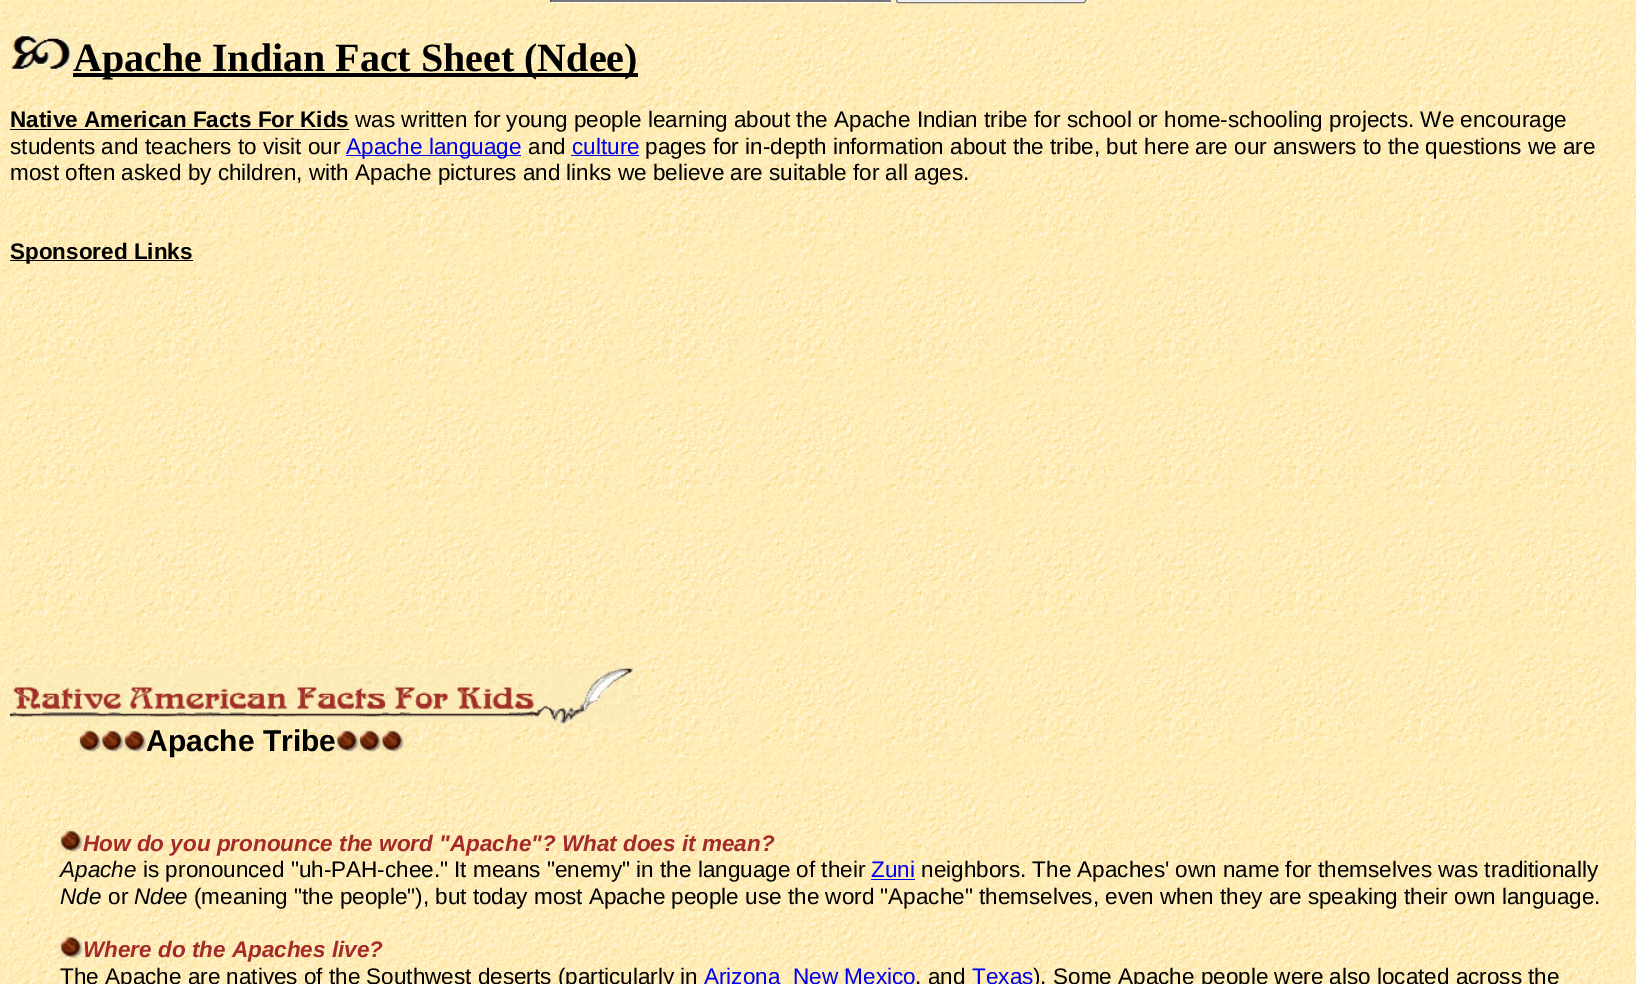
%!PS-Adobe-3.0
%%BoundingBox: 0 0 1636 984
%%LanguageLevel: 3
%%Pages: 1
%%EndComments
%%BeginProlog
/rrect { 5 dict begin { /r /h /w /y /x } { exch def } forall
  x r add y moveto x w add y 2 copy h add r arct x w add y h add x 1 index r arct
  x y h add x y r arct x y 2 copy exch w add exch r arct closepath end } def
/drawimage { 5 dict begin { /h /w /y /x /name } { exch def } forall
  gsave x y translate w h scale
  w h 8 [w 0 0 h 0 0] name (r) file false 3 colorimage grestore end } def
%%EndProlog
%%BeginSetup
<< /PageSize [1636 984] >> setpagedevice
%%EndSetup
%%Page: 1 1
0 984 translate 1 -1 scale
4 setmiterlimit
1 setgray
0 0 1636 984 rectfill
(images/1.raw) 0 0 1636 984 drawimage
550 0 341 3 rectfill
0.463 setgray
newpath 891 -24 moveto 891 2.5 lineto 889 0 lineto 889 -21 lineto closepath fill
newpath 891 2 moveto 550 2 lineto 552 0 lineto 889 0 lineto closepath fill
0.31 setgray
newpath 550 2.5 moveto 550 -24 lineto 552.5 -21 lineto 552.5 0 lineto closepath fill
0.937 setgray
896.5 -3.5 189 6 2 rrect gsave fill grestore
0.463 setgray
stroke
(images/2.raw) 10 28 63 42 drawimage
0 setgray
73 73 565 4 rectfill
10 129 339 1 rectfill
0 0 0.933 setrgbcolor
346 155 175 1 rectfill
571 155 68 1 rectfill
0 setgray
10 260 183 1 rectfill
(images/3.raw) 10 667 625 57 drawimage
(images/4.raw) 78 730 24 22 drawimage
(images/5.raw) 101 730 23 22 drawimage
(images/6.raw) 123 730 24 22 drawimage
(images/7.raw) 336 730 23 22 drawimage
(images/8.raw) 358 730 24 22 drawimage
(images/9.raw) 381 730 23 22 drawimage
(images/10.raw) 60 830 23 22 drawimage
0 0 0.933 setrgbcolor
871 879 44 1 rectfill
(images/11.raw) 60 936 23 22 drawimage
/LiberationSerif-Bold [40 0 0 -40 0 0] selectfont
0 setgray
73 71 moveto (Apache Indian Fact Sheet \(Ndee\)) show
/LiberationSans-Bold [22.5 0 0 -22.5 0 0] selectfont
10 127 moveto (Native American Facts For Kids) show
/LiberationSans-Regular [22.5 0 0 -22.5 0 0] selectfont
355 127 moveto (was written for young people learning about the Apache Indian tribe for school or home-schooling projects. We encourage) show
10 154 moveto (students and teachers to visit our) show
0 0 0.933 setrgbcolor
346 154 moveto (Apache language) show
0 setgray
528 154 moveto (and) show
0 0 0.933 setrgbcolor
572 154 moveto (culture) show
0 setgray
645 154 moveto (pages for in-depth information about the tribe, but here are our answers to the questions we are) show
10 180 moveto (most often asked by children, with Apache pictures and links we believe are suitable for all ages.) show
/LiberationSans-Bold [22.5 0 0 -22.5 0 0] selectfont
10 259 moveto (Sponsored Links) show
/LiberationSans-Bold [30 0 0 -30 0 0] selectfont
146 751 moveto (Apache Tribe) show
/LiberationSans-BoldItalic [22.5 0 0 -22.5 0 0] selectfont
0.647 0.165 0.165 setrgbcolor
83 851 moveto (How do you pronounce the word "Apache"? What does it mean?) show
/LiberationSans-Italic [22.5 0 0 -22.5 0 0] selectfont
0 setgray
60 877 moveto (Apache) show
/LiberationSans-Regular [22.5 0 0 -22.5 0 0] selectfont
143 877 moveto (is pronounced "uh-PAH-chee." It means "enemy" in the language of their) show
0 0 0.933 setrgbcolor
871 877 moveto (Zuni) show
0 setgray
921 877 moveto (neighbors. The Apaches' own name for themselves was traditionally) show
/LiberationSans-Italic [22.5 0 0 -22.5 0 0] selectfont
60 904 moveto (Nde) show
/LiberationSans-Regular [22.5 0 0 -22.5 0 0] selectfont
108 904 moveto (or) show
/LiberationSans-Italic [22.5 0 0 -22.5 0 0] selectfont
134 904 moveto (Ndee) show
/LiberationSans-Regular [22.5 0 0 -22.5 0 0] selectfont
194 904 moveto (\(meaning "the people"\), but today most Apache people use the word "Apache" themselves, even when they are speaking their own language.) show
/LiberationSans-BoldItalic [22.5 0 0 -22.5 0 0] selectfont
0.647 0.165 0.165 setrgbcolor
83 957 moveto (Where do the Apaches live?) show
/LiberationSans-Regular [22.5 0 0 -22.5 0 0] selectfont
0 setgray
60 984 moveto (The Apache are natives of the Southwest deserts \(particularly in) show
0 0 0.933 setrgbcolor
704 984 moveto (Arizona) show
793 984 moveto (New Mexico) show
0 setgray
915 984 moveto (, and) show
0 0 0.933 setrgbcolor
972 984 moveto (Texas) show
0 setgray
1033 984 moveto (\). Some Apache people were also located across the) show
showpage
%%EOF
